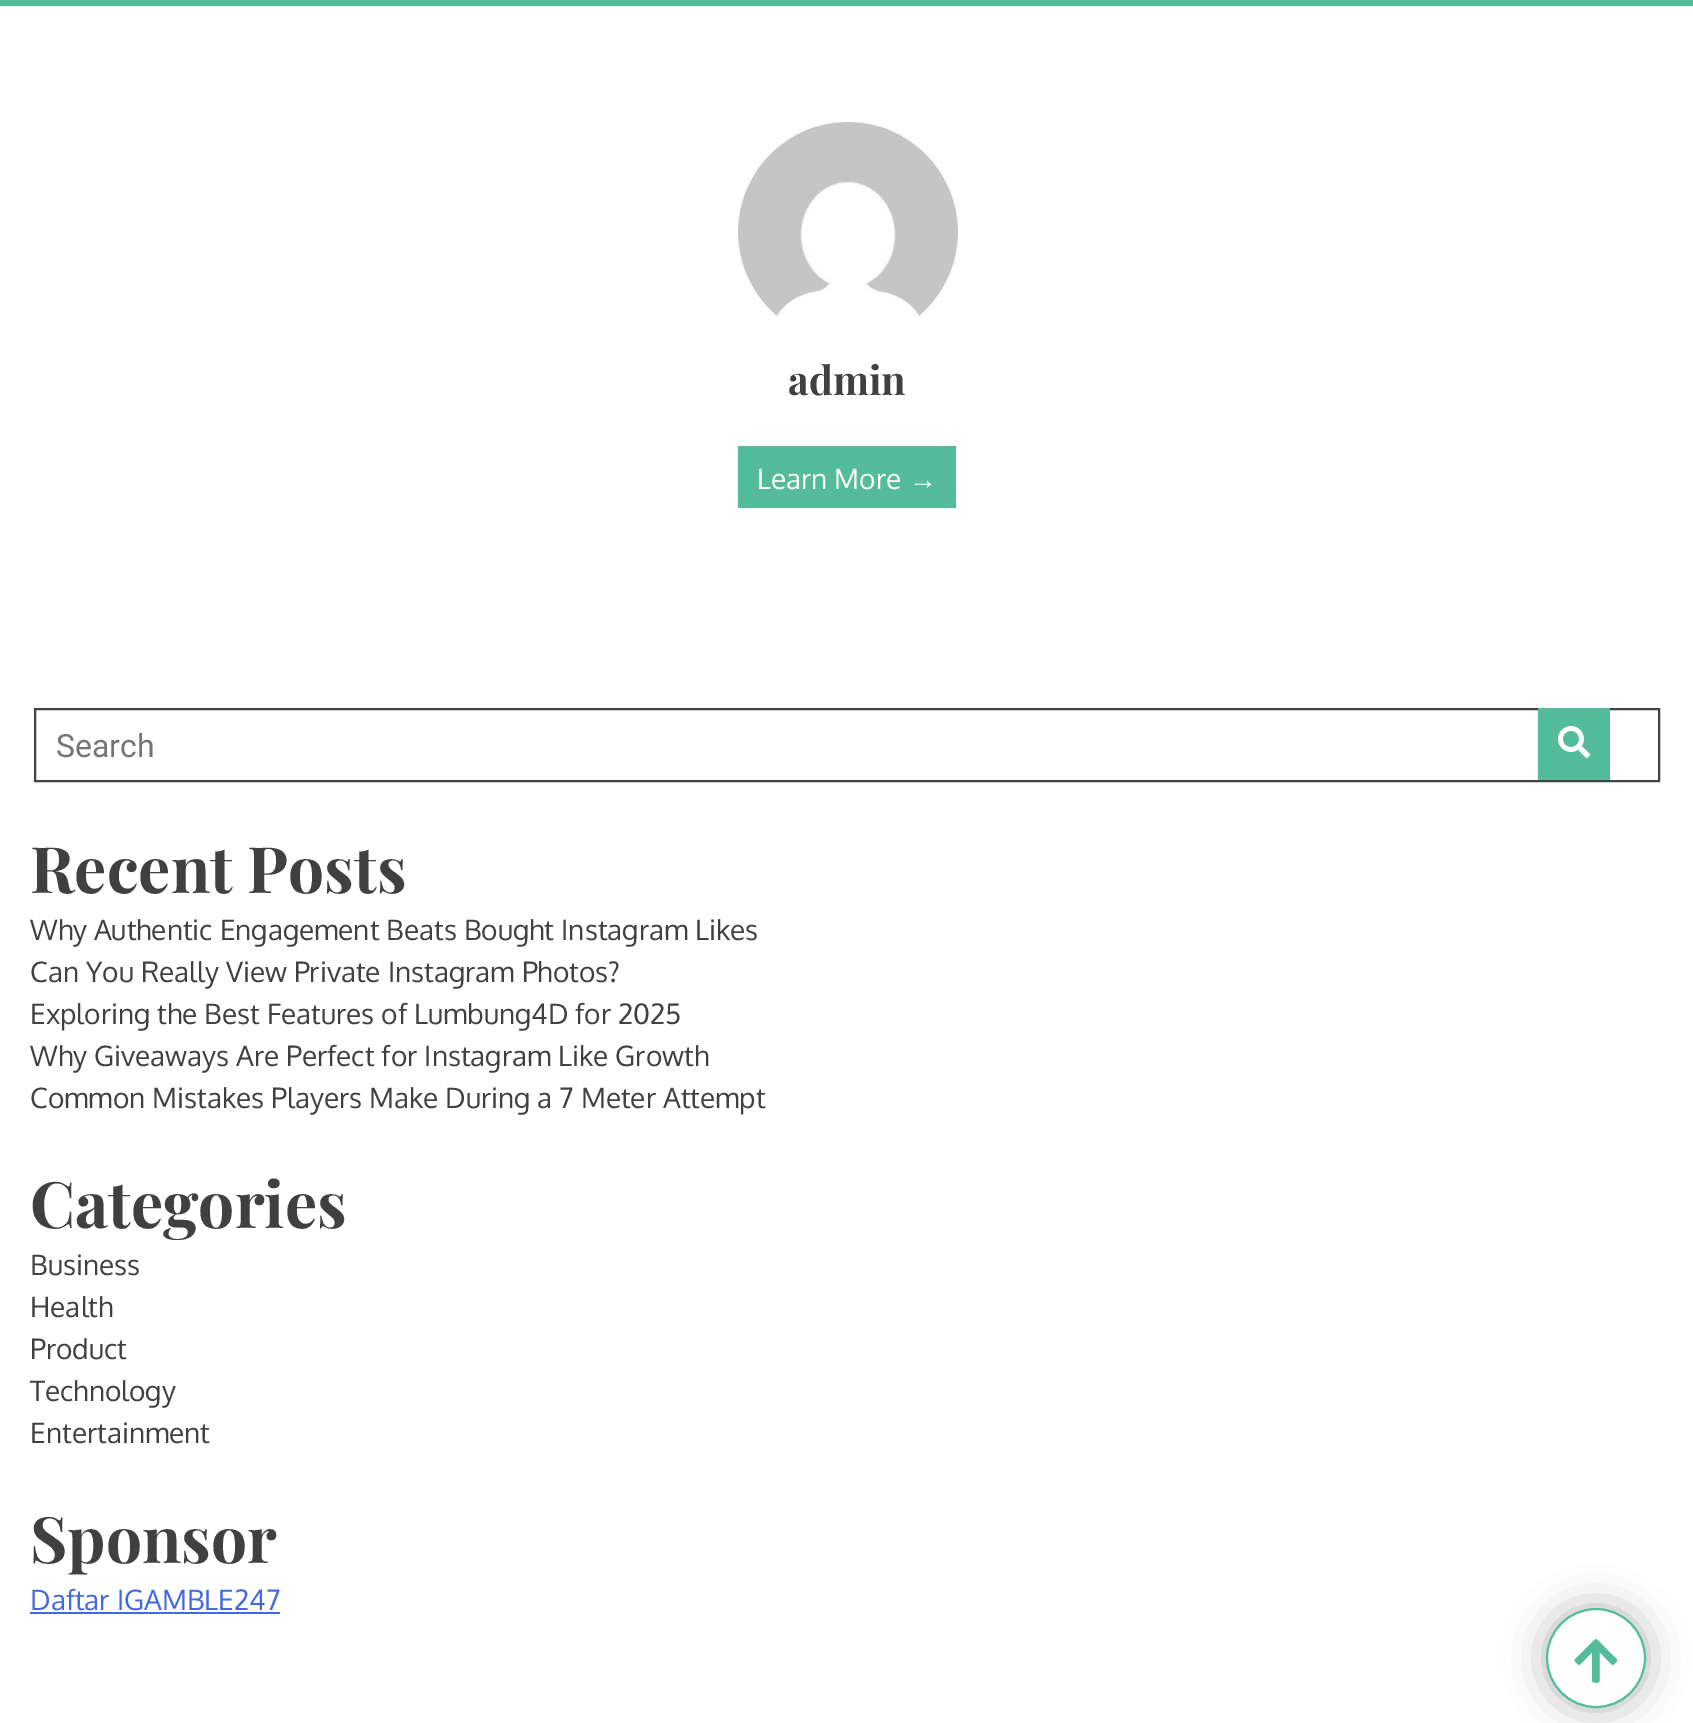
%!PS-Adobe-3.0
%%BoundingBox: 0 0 1693 1723
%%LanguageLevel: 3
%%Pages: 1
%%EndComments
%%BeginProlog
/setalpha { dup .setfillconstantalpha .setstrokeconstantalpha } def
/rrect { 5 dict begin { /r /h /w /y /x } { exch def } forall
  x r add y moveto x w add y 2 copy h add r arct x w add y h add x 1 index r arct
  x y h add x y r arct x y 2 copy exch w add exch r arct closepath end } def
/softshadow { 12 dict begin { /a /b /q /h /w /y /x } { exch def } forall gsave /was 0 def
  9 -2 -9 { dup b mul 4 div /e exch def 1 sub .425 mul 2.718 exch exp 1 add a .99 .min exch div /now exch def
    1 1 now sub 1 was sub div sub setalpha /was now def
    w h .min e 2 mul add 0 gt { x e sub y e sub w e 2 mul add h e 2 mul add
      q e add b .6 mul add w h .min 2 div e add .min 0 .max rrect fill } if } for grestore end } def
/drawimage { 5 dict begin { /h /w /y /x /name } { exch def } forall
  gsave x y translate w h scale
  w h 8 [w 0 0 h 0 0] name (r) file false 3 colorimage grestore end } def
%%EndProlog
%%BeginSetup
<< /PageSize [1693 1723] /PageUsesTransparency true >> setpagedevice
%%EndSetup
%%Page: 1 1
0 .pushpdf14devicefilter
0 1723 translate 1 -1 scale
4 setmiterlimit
1 setgray
0 0 1693 1723 rectfill
0.329 0.737 0.608 setrgbcolor
0 0 1693 6 rectfill
(images/1.raw) 738 122 220 195 drawimage
738 446 218 62 rectfill
0.263 setgray
2 setlinewidth
35 709 1624 72 rectstroke
0.329 0.737 0.608 setrgbcolor
1538 708 72 72 rectfill
(images/2.raw) 1558 726 32 32 drawimage
0.255 0.412 0.882 setrgbcolor
30 1612 250 2 rectfill
0 setgray
1546 1608 100 100 50 20 0.28 softshadow
1 setgray
newpath 1596 1658 49 0 360 arc closepath gsave fill grestore
0.329 0.737 0.608 setrgbcolor
stroke
(images/3.raw) 1574 1639 44 44 drawimage
/PlayfairDisplay-Bold [40 0 0 -40 0 0] selectfont
0.251 setgray
788 395 moveto (admin) show
/Oxygen-Regular [28 0 0 -28 0 0] selectfont
1 setgray
757 489 moveto (Learn More) show
/LiberationSans-Regular [28 0 0 -28 0 0] selectfont
909 489 moveto (→) show
/Roboto-Regular [32 0 0 -32 0 0] selectfont
0.459 setgray
56 757 moveto (Search) show
/PlayfairDisplay-Bold [64 0 0 -64 0 0] selectfont
0.251 setgray
30 893 moveto (Recent Posts) show
/Oxygen-Regular [28 0 0 -28 0 0] selectfont
30 940 moveto (Why Authentic Engagement Beats Bought Instagram Likes) show
30 982 moveto (Can You Really View Private Instagram Photos?) show
30 1024 moveto (Exploring the Best Features of Lumbung4D for 2025) show
30 1066 moveto (Why Giveaways Are Perfect for Instagram Like Growth) show
30 1108 moveto (Common Mistakes Players Make During a 7 Meter Attempt) show
/PlayfairDisplay-Bold [64 0 0 -64 0 0] selectfont
30 1228 moveto (Categories) show
/Oxygen-Regular [28 0 0 -28 0 0] selectfont
30 1275 moveto (Business) show
30 1317 moveto (Health) show
30 1359 moveto (Product) show
30 1401 moveto (Technology) show
30 1443 moveto (Entertainment) show
/PlayfairDisplay-Bold [64 0 0 -64 0 0] selectfont
30 1563 moveto (Sponsor) show
/Oxygen-Regular [28 0 0 -28 0 0] selectfont
0.255 0.412 0.882 setrgbcolor
30 1610 moveto (Daftar IGAMBLE247) show
.poppdf14devicefilter showpage
%%EOF
